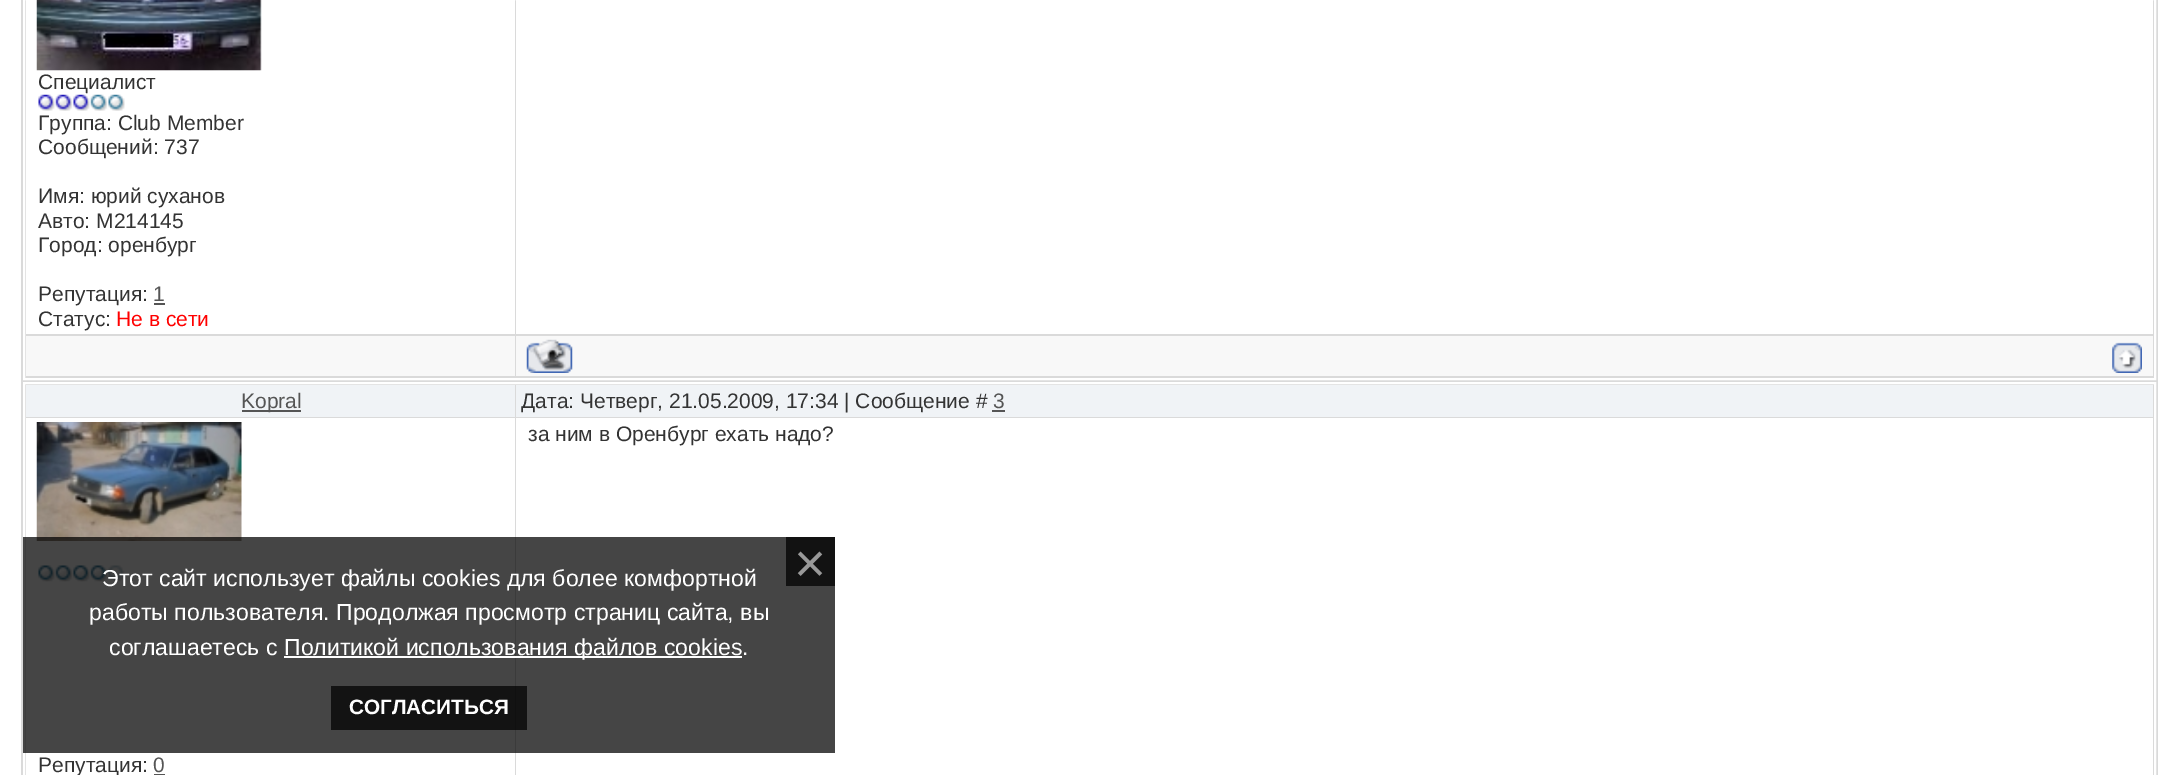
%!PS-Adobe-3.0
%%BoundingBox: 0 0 2178 775
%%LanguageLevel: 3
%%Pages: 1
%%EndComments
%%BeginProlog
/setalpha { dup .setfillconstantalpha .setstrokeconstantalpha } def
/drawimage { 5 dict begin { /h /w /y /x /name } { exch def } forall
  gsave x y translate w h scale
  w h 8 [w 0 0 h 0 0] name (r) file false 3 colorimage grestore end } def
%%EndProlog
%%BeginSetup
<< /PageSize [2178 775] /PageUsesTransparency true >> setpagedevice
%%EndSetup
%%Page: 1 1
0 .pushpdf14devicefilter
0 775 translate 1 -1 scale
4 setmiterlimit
1 setgray
0 0 2178 775 rectfill
0.855 setgray
21 0 2137 775 rectfill
1 setgray
2 setlinewidth
24 -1 2131 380 rectstroke
26 0 489 334 rectfill
(images/1.raw) 36 0 226 71 drawimage
(images/2.raw) 38 94 87 17 drawimage
0.333 setgray
154 303 11 2 rectfill
1 setgray
516 0 1637 334 rectfill
0.973 setgray
26 336 489 40 rectfill
516 336 1637 40 rectfill
(images/3.raw) 526 339 47 34 drawimage
(images/4.raw) 2112 342 30 31 drawimage
1 setgray
24 383 2131 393 rectstroke
0.941 0.953 0.965 setrgbcolor
26 385 489 32 rectfill
0.333 setgray
242 410 59 2 rectfill
0.941 0.953 0.965 setrgbcolor
516 385 1637 32 rectfill
0.333 setgray
992 410 13 2 rectfill
1 setgray
516 418 1637 357 rectfill
26 418 489 357 rectfill
(images/5.raw) 36 422 206 119 drawimage
(images/6.raw) 38 565 87 17 drawimage
0.333 setgray
154 774 11 1 rectfill
0.73 setalpha
0 setgray
23 537 812 216 rectfill
1 setalpha
0.071 setgray
786 537 49 49 rectfill
0.73 setalpha
0 setgray
331 686 196 44 rectfill
1 setalpha
1 setgray
284 656 458 2 rectfill
/LiberationSans-Regular [21 0 0 -21 0 0] selectfont
0.2 setgray
38 89 moveto (Специалист) show
38 130 moveto (Группа: Club Member) show
38 154 moveto (Сообщений: 737) show
38 203 moveto (Имя: юрий суханов) show
38 228 moveto (Авто: М214145) show
38 252 moveto (Город: оренбург) show
38 301 moveto (Репутация:) show
0.333 setgray
153 301 moveto (1) show
0.2 setgray
38 326 moveto (Статус:) show
1 0 0 setrgbcolor
116 326 moveto (Не в сети) show
0.333 setgray
241 408 moveto (Kopral) show
0.2 setgray
521 408 moveto (Дата: Четверг, 21.05.2009, 17:34 | Сообщение #) show
0.333 setgray
993 408 moveto (3) show
0.2 setgray
528 441 moveto (за ним в Оренбург ехать надо?) show
38 772 moveto (Репутация:) show
0.333 setgray
153 772 moveto (0) show
/LiberationSans-Regular [55 0 0 -55 0 0] selectfont
0.6 setgray
794 582 moveto (×) show
/LiberationSans-Bold [20.75 0 0 -20.75 0 0] selectfont
1 setgray
349 714 moveto (СОГЛАСИТЬСЯ) show
/LiberationSans-Regular [23.1 0 0 -23.1 0 0] selectfont
102 586 moveto (Этот сайт использует файлы cookies для более комфортной) show
89 620 moveto (работы пользователя. Продолжая просмотр страниц сайта, вы) show
109 655 moveto (соглашаетесь с) show
284 655 moveto (Политикой использования файлов cookies) show
742 655 moveto (.) show
.poppdf14devicefilter showpage
%%EOF
